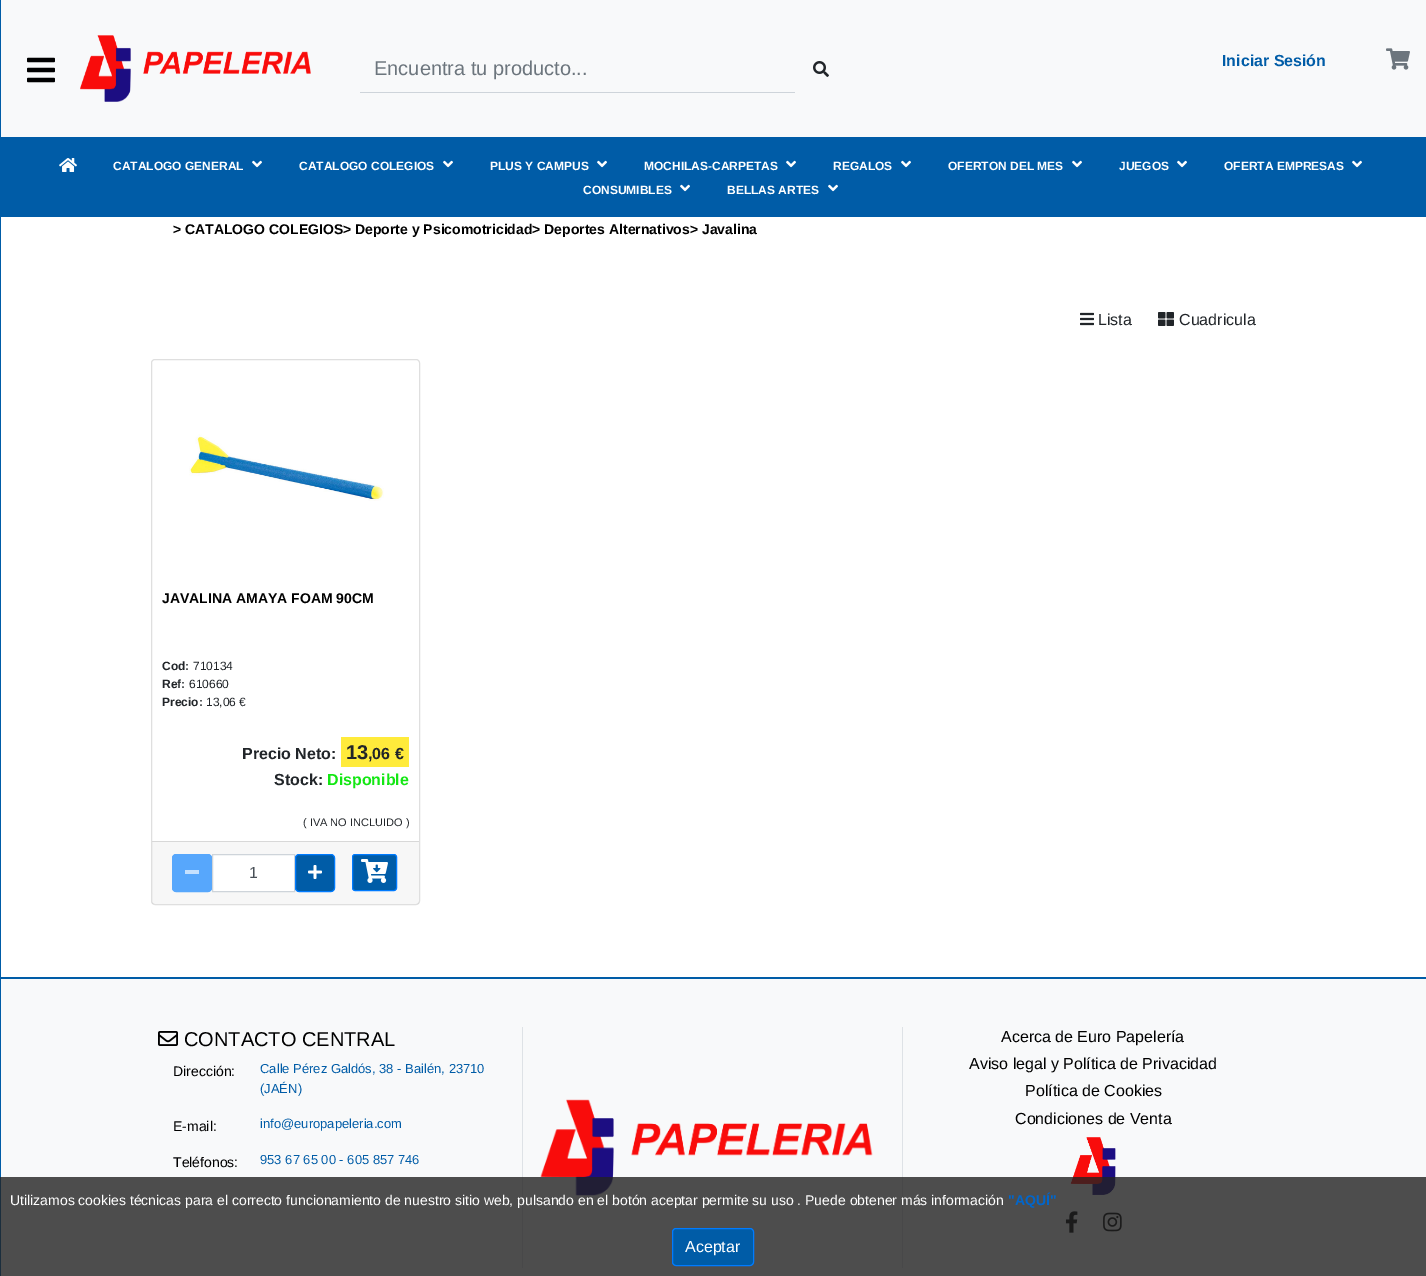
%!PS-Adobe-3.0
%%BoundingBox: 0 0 1426 1276
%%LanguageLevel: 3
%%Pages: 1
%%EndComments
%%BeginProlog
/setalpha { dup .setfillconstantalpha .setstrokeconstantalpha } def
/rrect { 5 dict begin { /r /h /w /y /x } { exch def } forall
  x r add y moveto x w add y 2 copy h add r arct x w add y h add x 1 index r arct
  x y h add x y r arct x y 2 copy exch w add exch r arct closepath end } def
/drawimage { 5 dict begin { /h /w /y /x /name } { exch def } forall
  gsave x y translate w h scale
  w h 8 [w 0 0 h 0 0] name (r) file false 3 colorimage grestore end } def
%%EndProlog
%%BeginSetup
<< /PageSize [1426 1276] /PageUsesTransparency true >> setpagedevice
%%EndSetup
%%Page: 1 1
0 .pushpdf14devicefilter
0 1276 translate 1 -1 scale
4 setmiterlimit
1 setgray
0 0 1426 1276 rectfill
0 0.361 0.655 setrgbcolor
0 977 1426 2 rectfill
0 0 1 1276 rectfill
0.973 0.976 0.98 setrgbcolor
1 0 1425 137 rectfill
(images/1.raw) 27 57 28 26 drawimage
(images/2.raw) 80 35 231 67 drawimage
0.808 0.831 0.855 setrgbcolor
360 92 435 1 rectfill
(images/3.raw) 813 61 16 16 drawimage
(images/4.raw) 1386 48 24 22 drawimage
0 0.361 0.655 setrgbcolor
1 137 1425 80 rectfill
(images/5.raw) 59 158 18 14 drawimage
(images/6.raw) 252 160 10 8 drawimage
(images/6.raw) 443 160 10 8 drawimage
(images/6.raw) 597 160 10 8 drawimage
(images/6.raw) 786 160 10 8 drawimage
(images/6.raw) 901 160 10 8 drawimage
(images/6.raw) 1072 160 10 8 drawimage
(images/6.raw) 1177 160 10 8 drawimage
(images/6.raw) 1352 160 10 8 drawimage
(images/6.raw) 680 184 10 8 drawimage
(images/6.raw) 828 184 10 8 drawimage
(images/7.raw) 1080 312 14 14 drawimage
(images/8.raw) 1158 312 16 14 drawimage
0.875 setgray
151.5 359.5 268 545 3.5 rrect stroke
(images/9.raw) 189 434 195 67 drawimage
1 0.922 0.231 setrgbcolor
341 737 68 30 rectfill
0.03 setalpha
0 setgray
152 842 267 62 rectfill
1 setalpha
0.847 setgray
152 841 267 1 rectfill
0.341 0.655 0.988 setrgbcolor
172.5 854.5 39 37 3.5 rrect gsave fill grestore
stroke
0.769 0.878 0.996 setrgbcolor
185 870 14 4 rectfill
1 setgray
newpath 212.5 854.5 moveto 294.5 854.5 lineto 294.5 891.5 lineto 212.5 891.5 lineto closepath gsave fill grestore
0.808 0.831 0.855 setrgbcolor
stroke
0 0.361 0.655 setrgbcolor
295.5 854.5 39 37 3.5 rrect gsave fill grestore
0 0.482 1 setrgbcolor
stroke
(images/10.raw) 308 865 14 14 drawimage
0 0.361 0.655 setrgbcolor
352.5 854.5 44 36 2.5 rrect gsave fill grestore
0 0.482 1 setrgbcolor
stroke
(images/11.raw) 361 859 27 24 drawimage
0.973 0.976 0.98 setrgbcolor
1 979 1425 297 rectfill
0.871 0.886 0.902 setrgbcolor
522 1027 1 241 rectfill
(images/12.raw) 158 1031 20 15 drawimage
902 1027 1 241 rectfill
(images/13.raw) 540 1099 333 97 drawimage
(images/14.raw) 1070 1137 46 58 drawimage
(images/15.raw) 1065 1211 13 22 drawimage
(images/16.raw) 1103 1212 19 20 drawimage
0.8 setalpha
0.133 setgray
0 1177 1426 99 rectfill
1 setalpha
0 0.361 0.655 setrgbcolor
672.5 1228.5 81 37 3.5 rrect gsave fill grestore
0 0.482 1 setrgbcolor
stroke
/LiberationSans-Regular [20 0 0 -20 0 0] selectfont
0.424 0.459 0.49 setrgbcolor
374 75 moveto (Encuentra tu producto...) show
/LiberationSans-Bold [16 0 0 -16 0 0] selectfont
0 0.361 0.655 setrgbcolor
1222 66 moveto (Iniciar Sesión) show
/LiberationSans-Bold [12 0 0 -12 0 0] selectfont
1 setgray
113 170 moveto (CATALOGO GENERAL) show
299 170 moveto (CATALOGO COLEGIOS) show
490 170 moveto (PLUS Y CAMPUS) show
644 170 moveto (MOCHILAS-CARPETAS) show
833 170 moveto (REGALOS) show
948 170 moveto (OFERTON DEL MES) show
1119 170 moveto (JUEGOS) show
1224 170 moveto (OFERTA EMPRESAS) show
583 194 moveto (CONSUMIBLES) show
727 194 moveto (BELLAS ARTES) show
/LiberationSans-Bold [14 0 0 -14 0 0] selectfont
0 setgray
173 234 moveto (> CATALOGO COLEGIOS> Deporte y Psicomotricidad> Deportes Alternativos> Javalina) show
/LiberationSans-Regular [16 0 0 -16 0 0] selectfont
0.129 0.145 0.161 setrgbcolor
1098 325 moveto (Lista) show
1179 325 moveto (Cuadricula) show
/LiberationSans-Bold [14 0 0 -14 0 0] selectfont
0 setgray
162 603 moveto (JAVALINA AMAYA FOAM 90CM) show
/LiberationSans-Bold [12 0 0 -12 0 0] selectfont
0.129 0.145 0.161 setrgbcolor
162 670 moveto (Cod:) show
/LiberationSans-Regular [12 0 0 -12 0 0] selectfont
193 670 moveto (710134) show
/LiberationSans-Bold [12 0 0 -12 0 0] selectfont
162 688 moveto (Ref:) show
/LiberationSans-Regular [12 0 0 -12 0 0] selectfont
189 688 moveto (610660) show
/LiberationSans-Bold [12 0 0 -12 0 0] selectfont
162 706 moveto (Precio:) show
/LiberationSans-Regular [12 0 0 -12 0 0] selectfont
206 706 moveto (13,06 €) show
/LiberationSans-Bold [16 0 0 -16 0 0] selectfont
242 759 moveto (Precio Neto:) show
/LiberationSans-Bold [20 0 0 -20 0 0] selectfont
346 759 moveto (13) show
/LiberationSans-Bold [16 0 0 -16 0 0] selectfont
368 759 moveto (,06 €) show
274 785 moveto (Stock:) show
0.075 0.906 0.075 setrgbcolor
327 785 moveto (Disponible) show
/LiberationSans-Regular [11 0 0 -11 0 0] selectfont
0.129 0.145 0.161 setrgbcolor
303 826 moveto (\( IVA NO INCLUIDO \)) show
/LiberationSans-Regular [16 0 0 -16 0 0] selectfont
0.286 0.314 0.341 setrgbcolor
249 878 moveto (1) show
/LiberationSans-Regular [20 0 0 -20 0 0] selectfont
0 setgray
184 1046 moveto (CONTACTO CENTRAL) show
/LiberationSans-Regular [14 0 0 -14 0 0] selectfont
173 1076 moveto (Dirección:) show
/LiberationSans-Regular [13 0 0 -13 0 0] selectfont
0 0.361 0.655 setrgbcolor
260 1073 moveto (Calle Pérez Galdós, 38 - Bailén, 23710) show
260 1093 moveto (\(JAÉN\)) show
/LiberationSans-Regular [14 0 0 -14 0 0] selectfont
0 setgray
173 1131 moveto (E-mail:) show
/LiberationSans-Regular [13 0 0 -13 0 0] selectfont
0 0.361 0.655 setrgbcolor
260 1128 moveto (info@europapeleria.com) show
/LiberationSans-Regular [14 0 0 -14 0 0] selectfont
0 setgray
173 1167 moveto (Teléfonos:) show
/LiberationSans-Regular [13 0 0 -13 0 0] selectfont
0 0.361 0.655 setrgbcolor
260 1164 moveto (953 67 65 00 - 605 857 746) show
/LiberationSans-Regular [16 0 0 -16 0 0] selectfont
0 setgray
1001 1042 moveto (Acerca de Euro Papelería) show
969 1069 moveto (Aviso legal y Política de Privacidad) show
1025 1096 moveto (Política de Cookies) show
1015 1124 moveto (Condiciones de Venta) show
/LiberationSans-Regular [14 0 0 -14 0 0] selectfont
1 setgray
10 1205 moveto (Utilizamos cookies técnicas para el correcto funcionamiento de nuestro sitio web, pulsando en el botón aceptar permite su uso . Puede obtener más información) show
/LiberationSans-Bold [14 0 0 -14 0 0] selectfont
0 0.4 0.8 setrgbcolor
1008 1205 moveto ("AQUÍ") show
/LiberationSans-Regular [16 0 0 -16 0 0] selectfont
1 setgray
685 1252 moveto (Aceptar) show
.poppdf14devicefilter showpage
%%EOF
